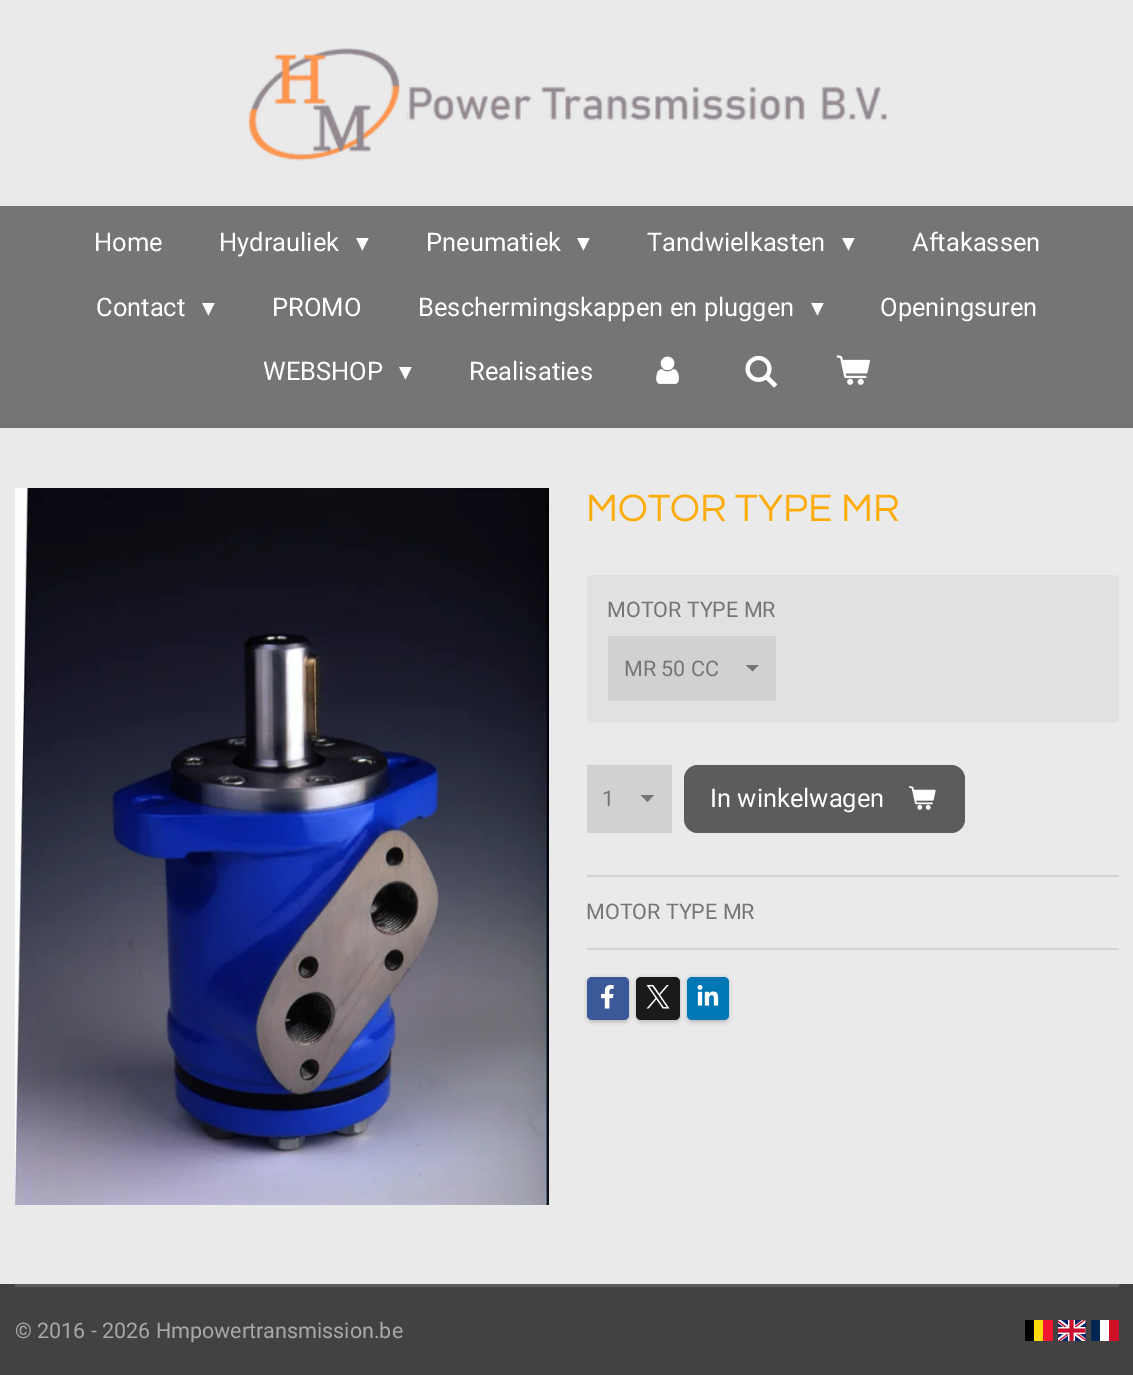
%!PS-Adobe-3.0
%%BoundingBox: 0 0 1133 1375
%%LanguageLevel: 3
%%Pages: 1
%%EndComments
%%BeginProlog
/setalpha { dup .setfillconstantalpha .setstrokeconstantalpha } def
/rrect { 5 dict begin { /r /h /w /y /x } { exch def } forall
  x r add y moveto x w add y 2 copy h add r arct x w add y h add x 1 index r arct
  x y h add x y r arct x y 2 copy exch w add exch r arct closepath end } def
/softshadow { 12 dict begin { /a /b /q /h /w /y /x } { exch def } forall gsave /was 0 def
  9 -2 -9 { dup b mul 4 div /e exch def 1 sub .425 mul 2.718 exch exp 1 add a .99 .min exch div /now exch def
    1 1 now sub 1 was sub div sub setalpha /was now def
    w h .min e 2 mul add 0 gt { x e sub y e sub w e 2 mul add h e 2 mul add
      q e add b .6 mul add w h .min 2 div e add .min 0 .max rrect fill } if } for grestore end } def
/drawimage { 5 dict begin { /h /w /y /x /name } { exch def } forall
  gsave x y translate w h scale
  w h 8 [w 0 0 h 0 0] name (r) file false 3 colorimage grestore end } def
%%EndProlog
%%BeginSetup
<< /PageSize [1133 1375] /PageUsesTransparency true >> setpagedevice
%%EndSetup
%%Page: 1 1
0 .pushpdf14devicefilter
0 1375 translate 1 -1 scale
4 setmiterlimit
0.918 setgray
0 0 1133 1375 rectfill
(images/1.raw) 248 47 639 114 drawimage
0.459 setgray
0 206 1133 222 rectfill
(images/2.raw) 656 356 23 28 drawimage
(images/3.raw) 745 355 33 33 drawimage
(images/4.raw) 836 355 34 30 drawimage
(images/5.raw) 15 488 534 717 drawimage
0.882 setgray
587 575 532 148 5 rrect fill
0.82 setgray
608 636 168 65 rectfill
gsave
746 665 13 7 rectclip
0.459 setgray
newpath 752.5 671.5 moveto 745.5 664.5 lineto 759 664.5 lineto closepath fill
grestore
587 765 85 68 rectfill
0.459 setgray
newpath 647.5 802 moveto 640.5 795 lineto 654 795 lineto closepath fill
0.361 setgray
684 765 281 68 14 rrect fill
(images/6.raw) 909 786 27 24 drawimage
0.827 setgray
587 875 532 2 rectfill
587 948 532 2 rectfill
0 setgray
587 978 42 44 5 2 0.2 softshadow
0.231 0.349 0.596 setrgbcolor
587 977 42 43 5 rrect fill
(images/7.raw) 601 984 13 25 drawimage
0 setgray
636 978 44 44 5 2 0.2 softshadow
0.102 setgray
636 977 44 43 5 rrect fill
(images/8.raw) 646 984 24 25 drawimage
0 setgray
687 978 42 44 5 2 0.2 softshadow
0 0.467 0.71 setrgbcolor
687 977 42 43 5 rrect fill
(images/9.raw) 697 985 22 21 drawimage
0.259 setgray
0 1284 1133 91 rectfill
0.369 setgray
15 1284 1104 3 rectfill
0 setgray
1025 1320 9 21 rectfill
1 0.851 0.047 setrgbcolor
1034 1320 9 21 rectfill
0.953 0.094 0.188 setrgbcolor
1043 1320 10 21 rectfill
(images/10.raw) 1058 1320 28 21 drawimage
1 setgray
1100 1320 9 21 rectfill
0 0.149 0.329 setrgbcolor
1091 1320 9 21 rectfill
0.808 0.067 0.149 setrgbcolor
1109 1320 10 21 rectfill
/Roboto-Regular [25.5 0 0 -25.5 0 0] selectfont
1 setgray
94 251 moveto (Home) show
219 251 moveto (Hydrauliek) show
/DejaVuSans-Regular [25.5 0 0 -25.5 0 0] selectfont
356 251 moveto (▾) show
/Roboto-Regular [25.5 0 0 -25.5 0 0] selectfont
426 251 moveto (Pneumatiek) show
/DejaVuSans-Regular [25.5 0 0 -25.5 0 0] selectfont
577 251 moveto (▾) show
/Roboto-Regular [25.5 0 0 -25.5 0 0] selectfont
647 251 moveto (Tandwielkasten) show
/DejaVuSans-Regular [25.5 0 0 -25.5 0 0] selectfont
842 251 moveto (▾) show
/Roboto-Regular [25.5 0 0 -25.5 0 0] selectfont
912 251 moveto (Aftakassen) show
96 316 moveto (Contact) show
/DejaVuSans-Regular [25.5 0 0 -25.5 0 0] selectfont
202 316 moveto (▾) show
/Roboto-Regular [25.5 0 0 -25.5 0 0] selectfont
272 316 moveto (PROMO) show
418 316 moveto (Beschermingskappen en pluggen) show
/DejaVuSans-Regular [25.5 0 0 -25.5 0 0] selectfont
811 316 moveto (▾) show
/Roboto-Regular [25.5 0 0 -25.5 0 0] selectfont
880 316 moveto (Openingsuren) show
263 380 moveto (WEBSHOP) show
/DejaVuSans-Regular [25.5 0 0 -25.5 0 0] selectfont
399 380 moveto (▾) show
/Roboto-Regular [25.5 0 0 -25.5 0 0] selectfont
469 380 moveto (Realisaties) show
/Questrial-Regular [39.75 0 0 -39.75 0 0] selectfont
0.996 0.675 0.043 setrgbcolor
586 521 moveto (MOTOR TYPE MR) show
/Roboto-Regular [21.5 0 0 -21.5 0 0] selectfont
0.459 setgray
607 617 moveto (MOTOR TYPE MR) show
624 676 moveto (MR 50 CC) show
602 806 moveto (1) show
/Roboto-Regular [25.5 0 0 -25.5 0 0] selectfont
1 setgray
710 807 moveto (In winkelwagen) show
/Roboto-Regular [21.5 0 0 -21.5 0 0] selectfont
0.459 setgray
586 919 moveto (MOTOR TYPE MR) show
0.659 setgray
15 1338 moveto (© 2016 - 2026 Hmpowertransmission.be) show
.poppdf14devicefilter showpage
%%EOF
